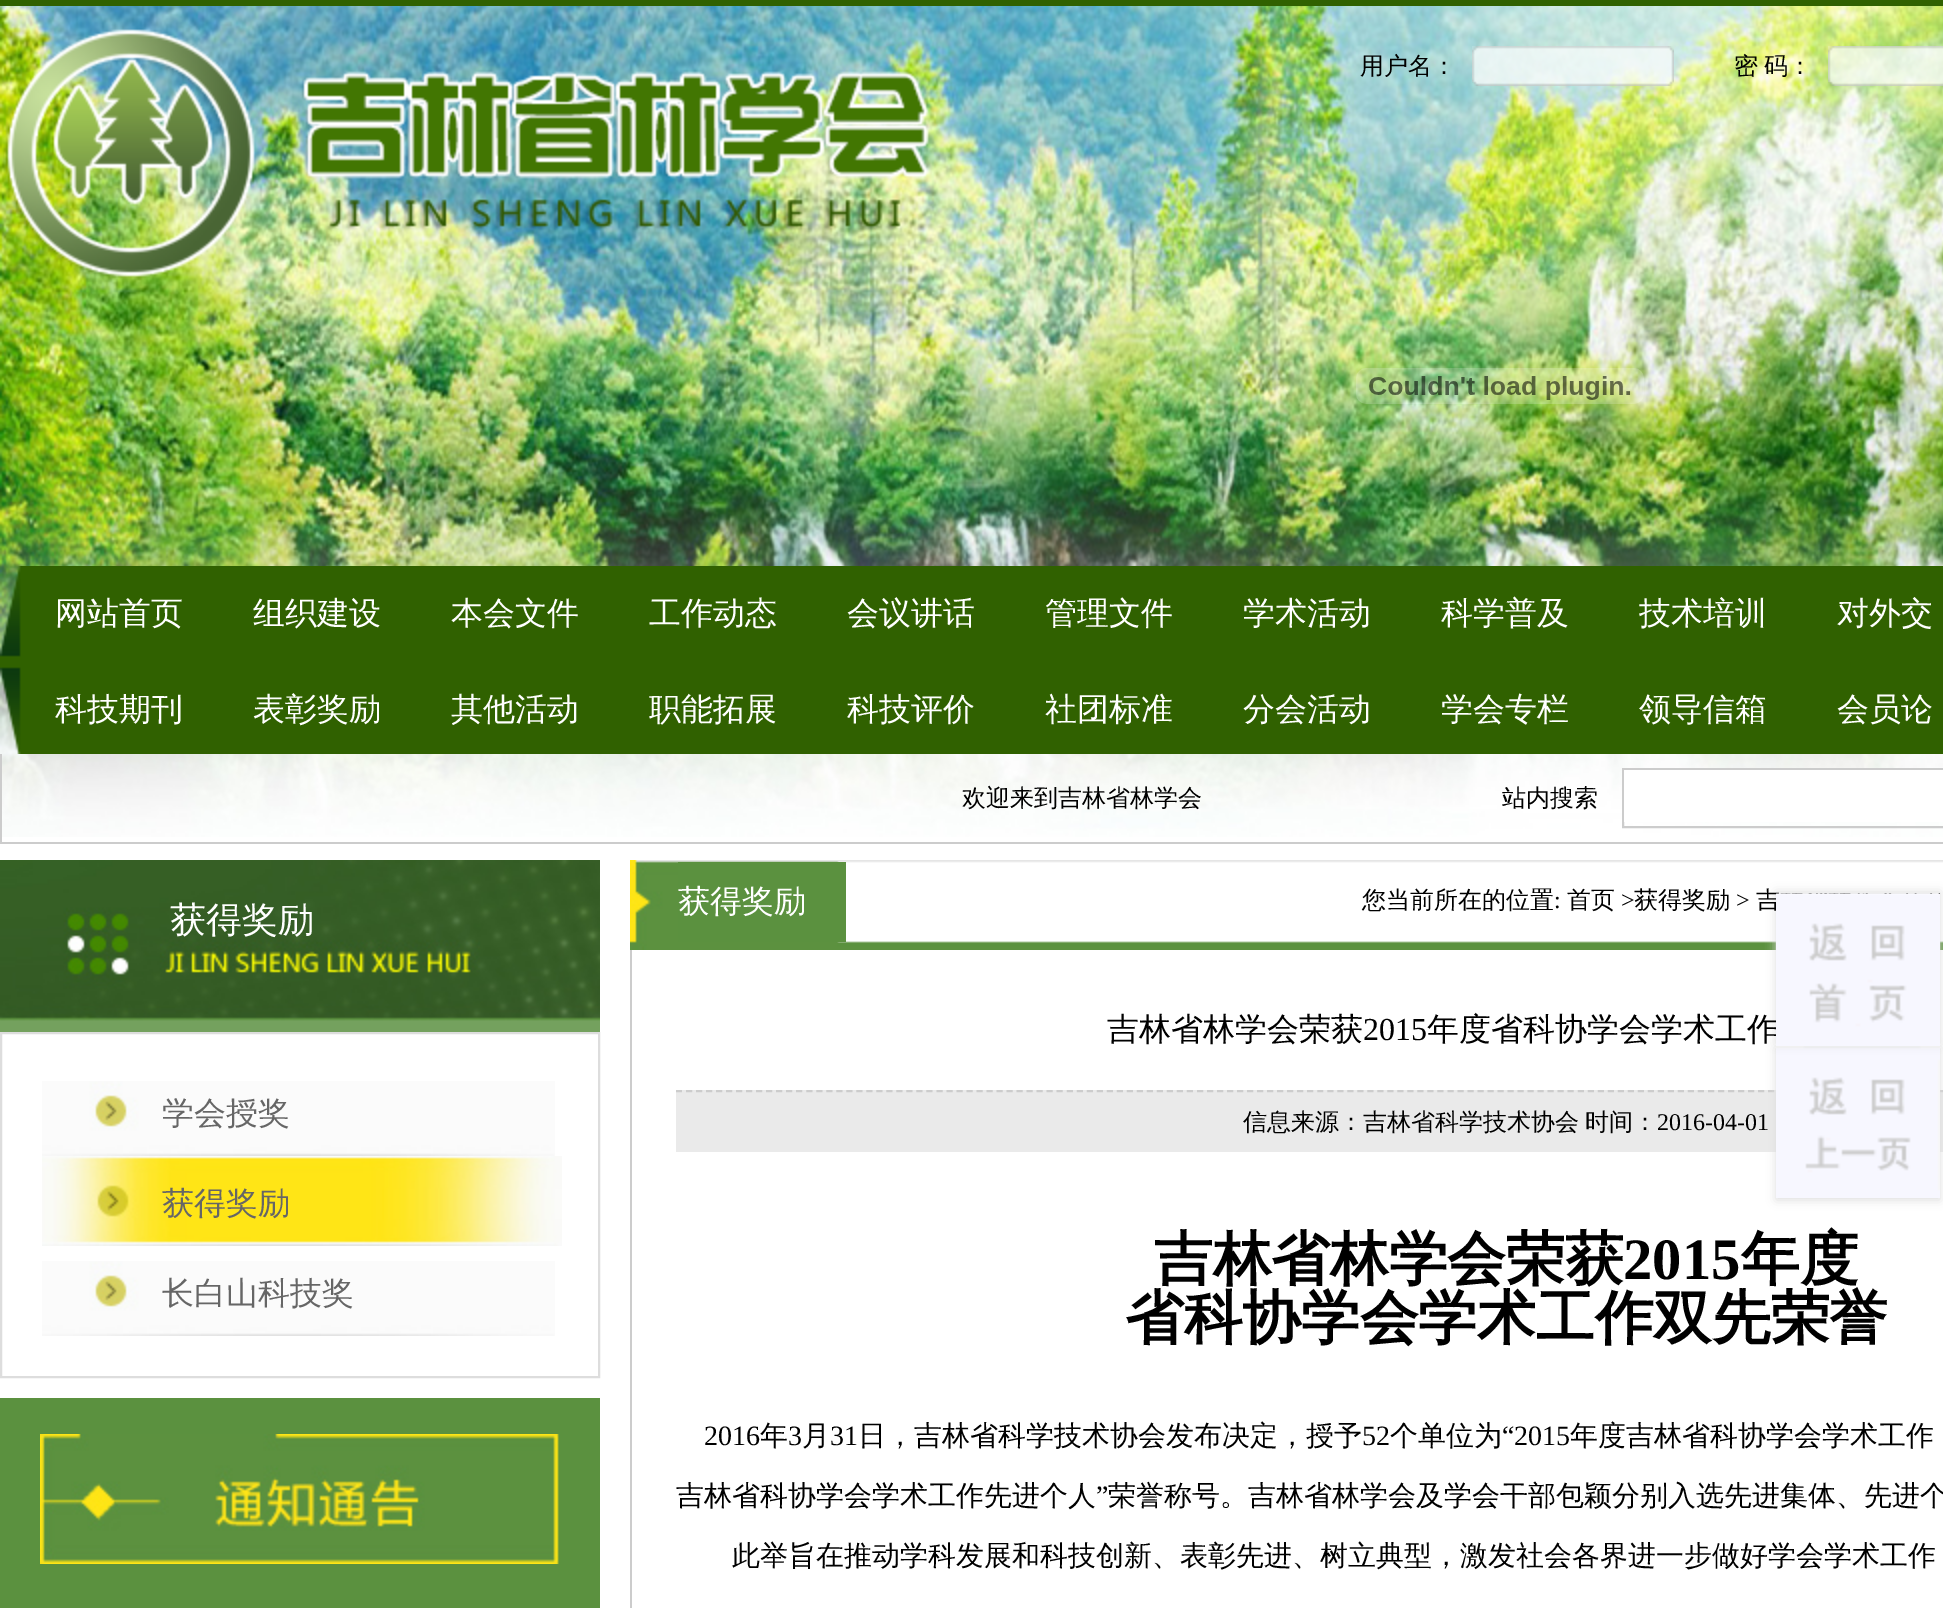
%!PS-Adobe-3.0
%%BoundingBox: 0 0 1943 1608
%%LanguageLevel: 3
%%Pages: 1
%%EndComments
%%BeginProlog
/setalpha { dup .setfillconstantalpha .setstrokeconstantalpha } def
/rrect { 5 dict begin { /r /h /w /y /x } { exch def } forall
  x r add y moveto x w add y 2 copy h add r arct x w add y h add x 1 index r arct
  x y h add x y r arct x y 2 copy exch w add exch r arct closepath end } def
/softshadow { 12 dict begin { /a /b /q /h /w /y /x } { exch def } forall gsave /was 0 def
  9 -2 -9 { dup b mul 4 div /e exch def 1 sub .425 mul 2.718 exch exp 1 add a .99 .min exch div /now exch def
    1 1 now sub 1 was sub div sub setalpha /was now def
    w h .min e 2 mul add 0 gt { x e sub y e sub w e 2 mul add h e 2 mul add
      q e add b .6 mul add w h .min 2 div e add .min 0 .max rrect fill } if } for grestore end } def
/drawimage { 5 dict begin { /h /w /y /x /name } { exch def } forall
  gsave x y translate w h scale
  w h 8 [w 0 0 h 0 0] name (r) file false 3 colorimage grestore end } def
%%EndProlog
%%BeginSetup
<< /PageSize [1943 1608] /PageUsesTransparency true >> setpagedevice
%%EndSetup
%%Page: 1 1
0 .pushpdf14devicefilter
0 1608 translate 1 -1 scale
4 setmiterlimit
1 setgray
0 0 1943 1608 rectfill
(images/1.raw) 0 6 1943 831 drawimage
0.188 0.38 0 setrgbcolor
0 0 1943 6 rectfill
(images/2.raw) 3 29 926 251 drawimage
(images/3.raw) 1472 46 202 40 drawimage
0.2 setalpha
0.925 0.961 0.957 setrgbcolor
1472 46 198 36 rectfill
1 setalpha
(images/4.raw) 1828 46 115 40 drawimage
0.2 setalpha
1828 46 115 36 rectfill
1 setalpha
(images/5.raw) 1356 368 288 36 drawimage
(images/6.raw) 0 566 1943 188 drawimage
0.8 setgray
0 842 1943 2 rectfill
0 754 2 90 rectfill
2 setlinewidth
1623 769 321 58 rectstroke
1 setgray
1624 770 319 52 rectfill
0.918 setgray
676 1090 1267 62 rectfill
0.8 setgray
[6 4.02] 0 setdash
newpath 676 1091 moveto 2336 1091 lineto stroke
0.867 setgray
1776 1048 164 152 0 5 1 softshadow
(images/8.raw) 1776 1046 164 152 drawimage
(images/13.raw) 630 860 1313 90 drawimage
1776 892 164 152 0 5 1 softshadow
(images/9.raw) 0 860 600 172 drawimage
[] 0 setdash
1 1033 598 344 rectstroke
(images/10.raw) 42 1081 513 75 drawimage
(images/11.raw) 42 1156 520 90 drawimage
(images/10.raw) 42 1261 513 75 drawimage
0.357 0.569 0.247 setrgbcolor
0 1398 600 210 rectfill
(images/12.raw) 40 1434 519 130 drawimage
678 862 168 80 rectfill
0.8 setgray
630 950 2 658 rectfill
/WenQuanYiZenHei-Medium [24 0 0 -24 0 0] selectfont
0 setgray
1360 74 moveto (用户名：) show
1734 74 moveto -1 0 32 (密 码：) widthshow
/WenQuanYiZenHei-Medium [32 0 0 -32 0 0] selectfont
1 setgray
55 624 moveto (网站首页) show
253 624 moveto (组织建设) show
451 624 moveto (本会文件) show
649 624 moveto (工作动态) show
847 624 moveto (会议讲话) show
1045 624 moveto (管理文件) show
1243 624 moveto (学术活动) show
1441 624 moveto (科学普及) show
1639 624 moveto (技术培训) show
1837 624 moveto (对外交) show
55 720 moveto (科技期刊) show
253 720 moveto (表彰奖励) show
451 720 moveto (其他活动) show
649 720 moveto (职能拓展) show
847 720 moveto (科技评价) show
1045 720 moveto (社团标准) show
1243 720 moveto (分会活动) show
1441 720 moveto (学会专栏) show
1639 720 moveto (领导信箱) show
1837 720 moveto (会员论) show
/WenQuanYiZenHei-Medium [24 0 0 -24 0 0] selectfont
0 setgray
962 806 moveto (欢迎来到吉林省林学会) show
1502 806 moveto (站内搜索) show
/WenQuanYiZenHei-Medium [36 0 0 -36 0 0] selectfont
1 setgray
170 932 moveto (获得奖励) show
/WenQuanYiZenHei-Medium [32 0 0 -32 0 0] selectfont
0.4 setgray
162 1124 moveto (学会授奖) show
162 1214 moveto (获得奖励) show
162 1304 moveto (长白山科技奖) show
1 setgray
678 912 moveto (获得奖励) show
/WenQuanYiZenHei-Medium [24 0 0 -24 0 0] selectfont
0 setgray
1362 908 moveto (您当前所在的位置) show
/LiberationSerif-Regular [24 0 0 -24 0 0] selectfont
1554 908 moveto (:) show
/WenQuanYiZenHei-Medium [24 0 0 -24 0 0] selectfont
1567 908 moveto (首页) show
/LiberationSerif-Regular [24 0 0 -24 0 0] selectfont
1621 908 moveto (>) show
/WenQuanYiZenHei-Medium [24 0 0 -24 0 0] selectfont
1634 908 moveto (获得奖励) show
/LiberationSerif-Regular [24 0 0 -24 0 0] selectfont
1736 908 moveto (>) show
/WenQuanYiZenHei-Medium [24 0 0 -24 0 0] selectfont
1756 908 moveto (吉) show
/WenQuanYiZenHei-Medium [32 0 0 -32 0 0] selectfont
1107 1040 moveto (吉林省林学会荣获) show
/LiberationSerif-Regular [32 0 0 -32 0 0] selectfont
1363 1040 moveto (2015) show
/WenQuanYiZenHei-Medium [32 0 0 -32 0 0] selectfont
1427 1040 moveto (年度省科协学会学术工作) show
(images/7.raw) 1776 893 164 153 drawimage
/WenQuanYiZenHei-Medium [24 0 0 -24 0 0] selectfont
1243 1130 moveto (信息来源：吉林省科学技术协会) show
1585 1130 moveto (时间：) show
/LiberationSerif-Regular [24 0 0 -24 0 0] selectfont
1657 1130 moveto (2016-04-01) show
/WenQuanYiZenHei-Bold [58.7 0 0 -58.7 0 0] selectfont
1154 1279 moveto (吉林省林学会荣获) show
/LiberationSerif-Bold [58.7 0 0 -58.7 0 0] selectfont
1623 1279 moveto (2015) show
/WenQuanYiZenHei-Bold [58.7 0 0 -58.7 0 0] selectfont
1741 1279 moveto (年度) show
1125 1338 moveto (省科协学会学术工作双先荣誉) show
/LiberationSerif-Regular [28 0 0 -28 0 0] selectfont
704 1445 moveto (2016) show
/WenQuanYiZenHei-Medium [28 0 0 -28 0 0] selectfont
760 1445 moveto (年) show
/LiberationSerif-Regular [28 0 0 -28 0 0] selectfont
788 1445 moveto (3) show
/WenQuanYiZenHei-Medium [28 0 0 -28 0 0] selectfont
802 1445 moveto (月) show
/LiberationSerif-Regular [28 0 0 -28 0 0] selectfont
830 1445 moveto (31) show
/WenQuanYiZenHei-Medium [28 0 0 -28 0 0] selectfont
858 1445 moveto (日，吉林省科学技术协会发布决定，授予) show
/LiberationSerif-Regular [28 0 0 -28 0 0] selectfont
1362 1445 moveto (52) show
/WenQuanYiZenHei-Medium [28 0 0 -28 0 0] selectfont
1390 1445 moveto (个单位为) show
/LiberationSerif-Regular [28 0 0 -28 0 0] selectfont
1502 1445 moveto (“2015) show
/WenQuanYiZenHei-Medium [28 0 0 -28 0 0] selectfont
1570 1445 moveto (年度吉林省科协学会学术工作) show
676 1505 moveto (吉林省科协学会学术工作先进个人) show
/LiberationSerif-Regular [28 0 0 -28 0 0] selectfont
1096 1505 moveto (”) show
/WenQuanYiZenHei-Medium [28 0 0 -28 0 0] selectfont
1108 1505 moveto (荣誉称号。吉林省林学会及学会干部包颖分别入选先进集体、先进个) show
732 1565 moveto (此举旨在推动学科发展和科技创新、表彰先进、树立典型，激发社会各界进一步做好学会学术工作) show
.poppdf14devicefilter showpage
%%EOF
